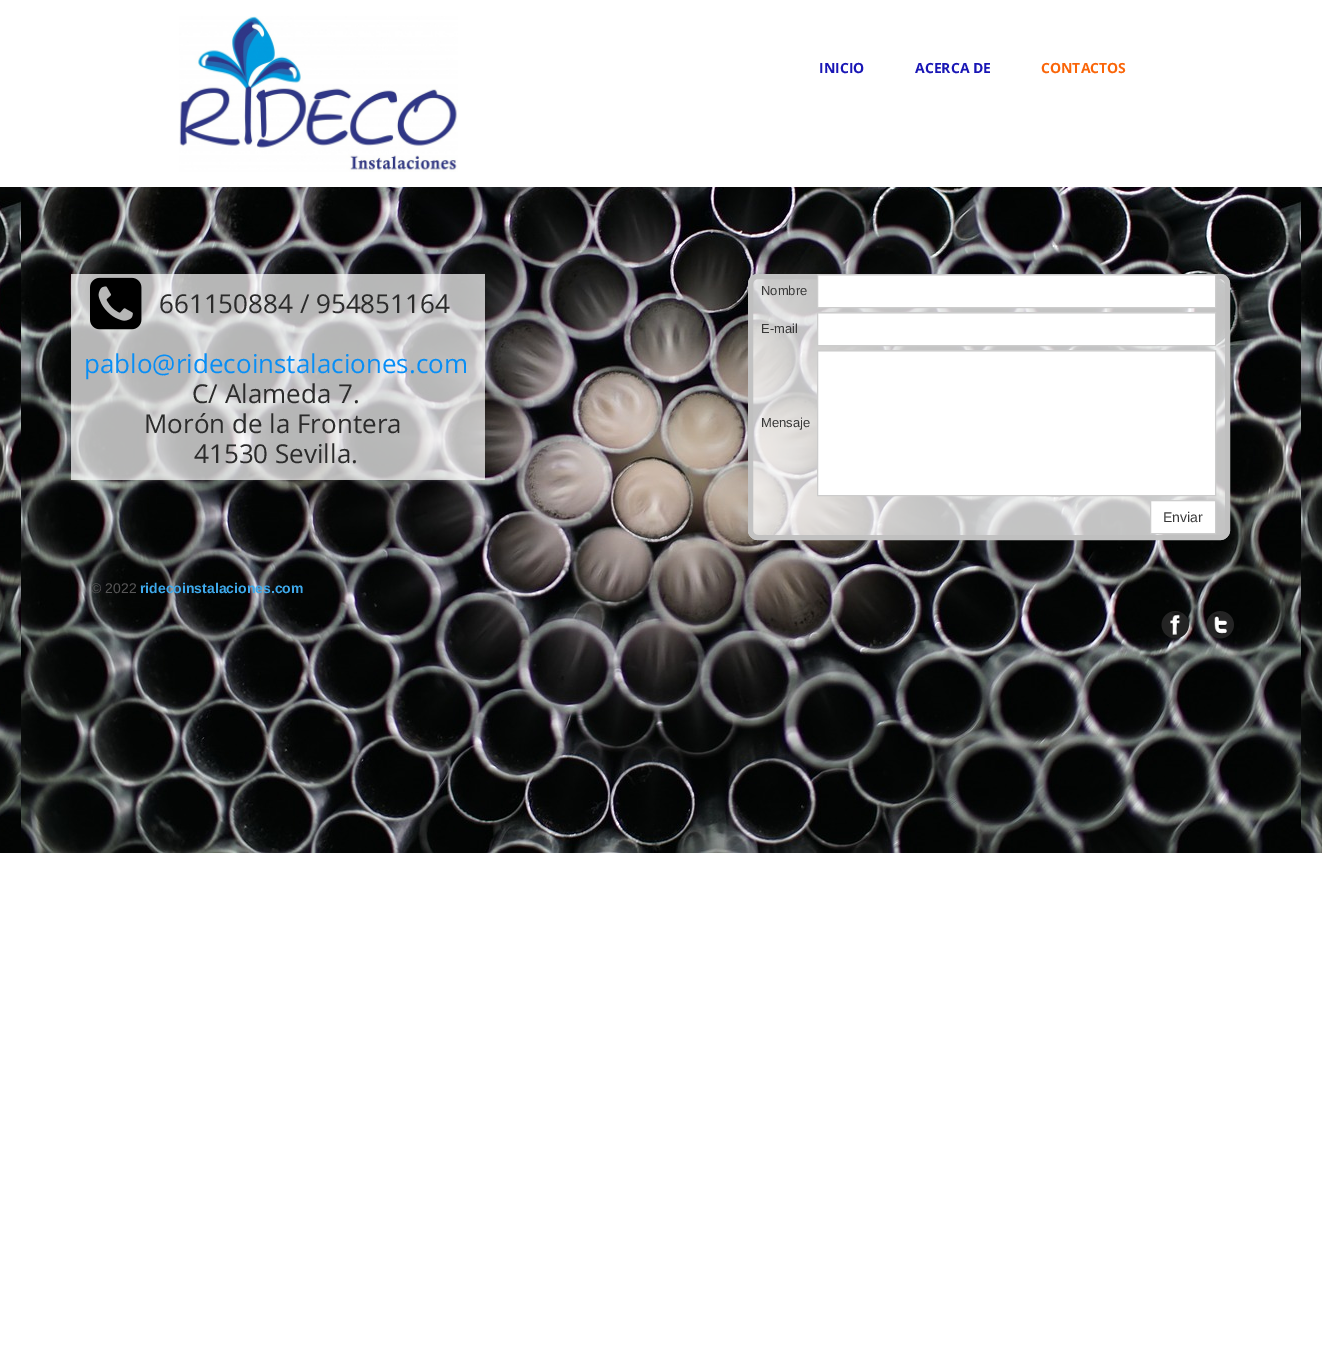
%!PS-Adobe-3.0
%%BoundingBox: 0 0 1322 1363
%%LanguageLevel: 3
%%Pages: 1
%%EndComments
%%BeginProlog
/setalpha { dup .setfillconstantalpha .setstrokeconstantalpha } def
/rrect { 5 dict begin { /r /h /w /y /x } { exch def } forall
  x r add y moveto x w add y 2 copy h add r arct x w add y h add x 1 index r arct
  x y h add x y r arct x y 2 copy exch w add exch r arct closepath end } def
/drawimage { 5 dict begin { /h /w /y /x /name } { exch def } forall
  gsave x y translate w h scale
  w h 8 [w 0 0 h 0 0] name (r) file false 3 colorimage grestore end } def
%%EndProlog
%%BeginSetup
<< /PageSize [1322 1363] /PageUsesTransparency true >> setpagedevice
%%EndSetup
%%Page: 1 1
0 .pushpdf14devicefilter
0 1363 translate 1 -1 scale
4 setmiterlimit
1 setgray
0 0 1322 1363 rectfill
(images/1.raw) 0 187 1322 666 drawimage
(images/2.raw) 179 16 279 156 drawimage
0.71 setalpha
71 274 414 206 rectfill
0.76 setalpha
748 274 482 266 10 rrect fill
0.95 setalpha
0.753 setgray
5 setlinewidth
750.5 276.5 477 261 7.5 rrect stroke
1 setalpha
(images/3.raw) 90 277 52 53 drawimage
1 setgray
818 276 397 31 rectfill
0.925 setgray
818 275 397 1 rectfill
0.8 setgray
1 setlinewidth
817.5 274.5 398 33 rectstroke
1 setgray
818 314 397 31 rectfill
0.925 setgray
818 313 397 1 rectfill
0.8 setgray
817.5 312.5 398 33 rectstroke
1 setgray
818 352 397 143 rectfill
0.925 setgray
818 351 397 1 rectfill
0.8 setgray
817.5 350.5 398 145 rectstroke
1 setgray
newpath 1150.5 500.5 moveto 1215.5 500.5 lineto 1215.5 533.5 lineto 1150.5 533.5 lineto closepath gsave fill grestore
0.8 setgray
stroke
(images/4.raw) 1161 611 28 28 drawimage
(images/5.raw) 1206 611 28 28 drawimage
/OpenSans-Bold [14 0 0 -14 0 0] selectfont
0.098 0.086 0.71 setrgbcolor
819 73 moveto (INICIO) show
915 73 moveto (ACERCA DE) show
0.98 0.396 0.031 setrgbcolor
1041 73 moveto (CONTACTOS) show
/LiberationSans-Regular [13 0 0 -13 0 0] selectfont
0.22 setgray
761 295 moveto (Nombre) show
761 333 moveto (E-mail) show
761 427 moveto (Mensaje) show
/LiberationSans-Regular [14 0 0 -14 0 0] selectfont
1163 522 moveto (Enviar) show
/OpenSans-Regular [26 0 0 -26 0 0] selectfont
0.169 setgray
159 313 moveto (661150884 / 954851164) show
0.031 0.557 0.961 setrgbcolor
84 373 moveto (pablo@ridecoinstalaciones.com) show
0.169 setgray
192 403 moveto (C/ Alameda 7.) show
144 433 moveto (Morón de la Frontera) show
194 463 moveto (41530 Sevilla.) show
/LiberationSans-Regular [14 0 0 -14 0 0] selectfont
0.341 0.337 0.341 setrgbcolor
91 593 moveto (© 2022) show
/LiberationSans-Bold [14 0 0 -14 0 0] selectfont
0.243 0.663 0.922 setrgbcolor
140 593 moveto (ridecoinstalaciones.com) show
.poppdf14devicefilter showpage
%%EOF
